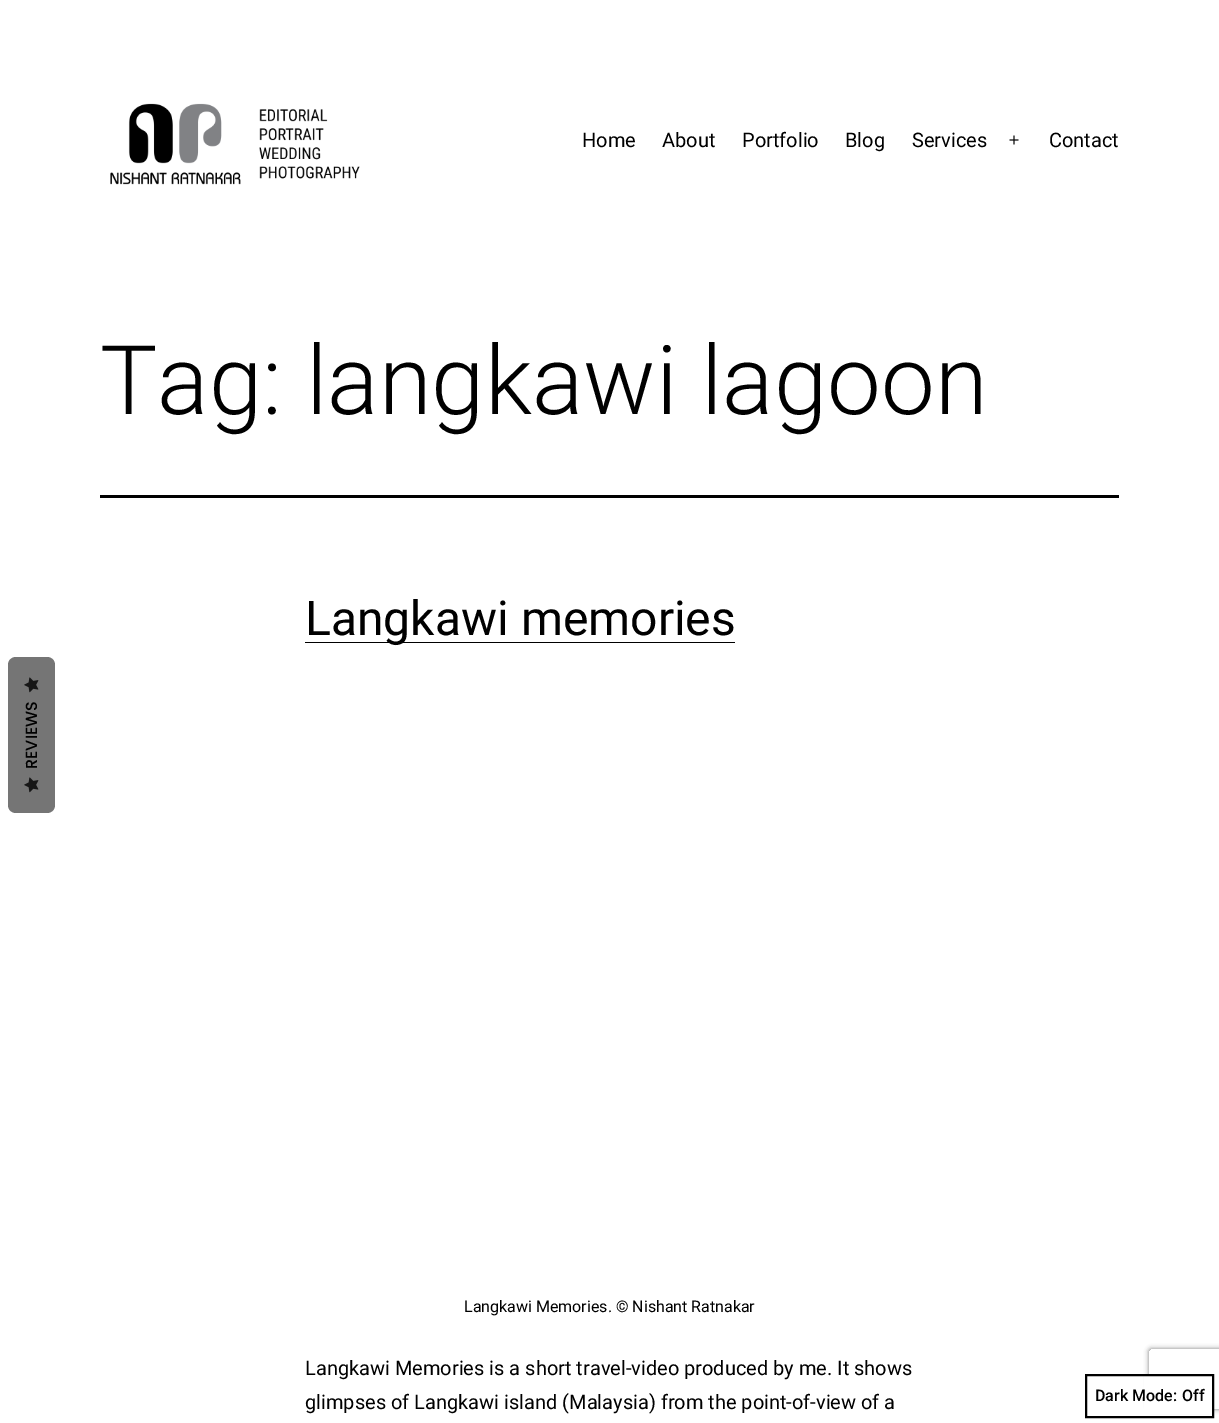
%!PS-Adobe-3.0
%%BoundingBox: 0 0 1219 1423
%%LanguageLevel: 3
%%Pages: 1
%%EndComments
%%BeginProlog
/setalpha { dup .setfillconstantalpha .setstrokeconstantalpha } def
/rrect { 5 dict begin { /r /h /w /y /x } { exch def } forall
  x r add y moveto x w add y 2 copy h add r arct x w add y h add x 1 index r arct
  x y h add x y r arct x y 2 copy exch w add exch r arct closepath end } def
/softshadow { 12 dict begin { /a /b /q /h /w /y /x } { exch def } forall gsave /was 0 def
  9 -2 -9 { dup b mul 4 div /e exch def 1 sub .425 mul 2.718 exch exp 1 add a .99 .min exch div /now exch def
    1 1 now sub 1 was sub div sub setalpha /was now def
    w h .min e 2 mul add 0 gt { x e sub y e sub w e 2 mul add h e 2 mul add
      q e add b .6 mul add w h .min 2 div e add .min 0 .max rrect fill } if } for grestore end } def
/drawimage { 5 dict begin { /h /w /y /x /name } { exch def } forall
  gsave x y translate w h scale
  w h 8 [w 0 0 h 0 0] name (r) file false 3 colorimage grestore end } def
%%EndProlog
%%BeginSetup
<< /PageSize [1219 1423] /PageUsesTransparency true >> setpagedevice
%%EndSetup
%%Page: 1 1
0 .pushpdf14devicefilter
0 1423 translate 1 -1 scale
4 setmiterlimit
1 setgray
0 0 1219 1423 rectfill
0.459 setgray
newpath 8 805 moveto 8 665 lineto 8 660 12 657 16 657 curveto 47 657 lineto 51 657 55 660 55 665 curveto 55 805 lineto 55 810 51 813 47 813 curveto 16 813 lineto 12 813 8 810 8 805 curveto closepath fill
(images/1.raw) 24 677 15 16 drawimage
(images/1.raw) 24 777 15 16 drawimage
(images/2.raw) 110 103 250 82 drawimage
(images/3.raw) 1009 135 10 10 drawimage
0 setgray
100 495 1019 3 rectfill
305 642 430 1 rectfill
gsave
newpath 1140 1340 moveto 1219 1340 lineto 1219 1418 lineto 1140 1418 lineto closepath 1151 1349 moveto 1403 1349 lineto 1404 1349 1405 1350 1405 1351 curveto 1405 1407 lineto 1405 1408 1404 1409 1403 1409 curveto 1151 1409 lineto 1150 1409 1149 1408 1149 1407 curveto 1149 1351 lineto 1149 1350 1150 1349 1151 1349 curveto closepath eoclip newpath
0.502 setgray
1149 1349 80 60 2 2.5 1 softshadow
grestore
1 setgray
1144 1376 68 38 rectfill
0 setgray
2 setlinewidth
1086 1375 127 42 rectstroke
/Poppins-Medium [16 0 0 -16 0 0] selectfont
gsave 37 769 translate -90 rotate 0 0 moveto (REVIEWS) show grestore
/Roboto-Regular [20 0 0 -20 0 0] selectfont
582 147 moveto (Home) show
662 147 moveto (About) show
742 147 moveto (Portfolio) show
845 147 moveto (Blog) show
912 147 moveto (Services) show
1049 147 moveto (Contact) show
/Roboto-Light [96 0 0 -96 0 0] selectfont
100 414 moveto (Tag: langkawi lagoon) show
/Roboto-Regular [48 0 0 -48 0 0] selectfont
305 635 moveto (Langkawi memories) show
/Roboto-Regular [16 0 0 -16 0 0] selectfont
464 1312 moveto (Langkawi Memories. © Nishant Ratnakar) show
/Roboto-Regular [20 0 0 -20 0 0] selectfont
305 1375 moveto (Langkawi Memories is a short travel-video produced by me. It shows) show
305 1409 moveto (glimpses of Langkawi island \(Malaysia\) from the point-of-view of a) show
/Roboto-Medium [16 0 0 -16 0 0] selectfont
1095 1401 moveto (Dark Mode:) show
1182 1401 moveto (Off) show
.poppdf14devicefilter showpage
%%EOF
